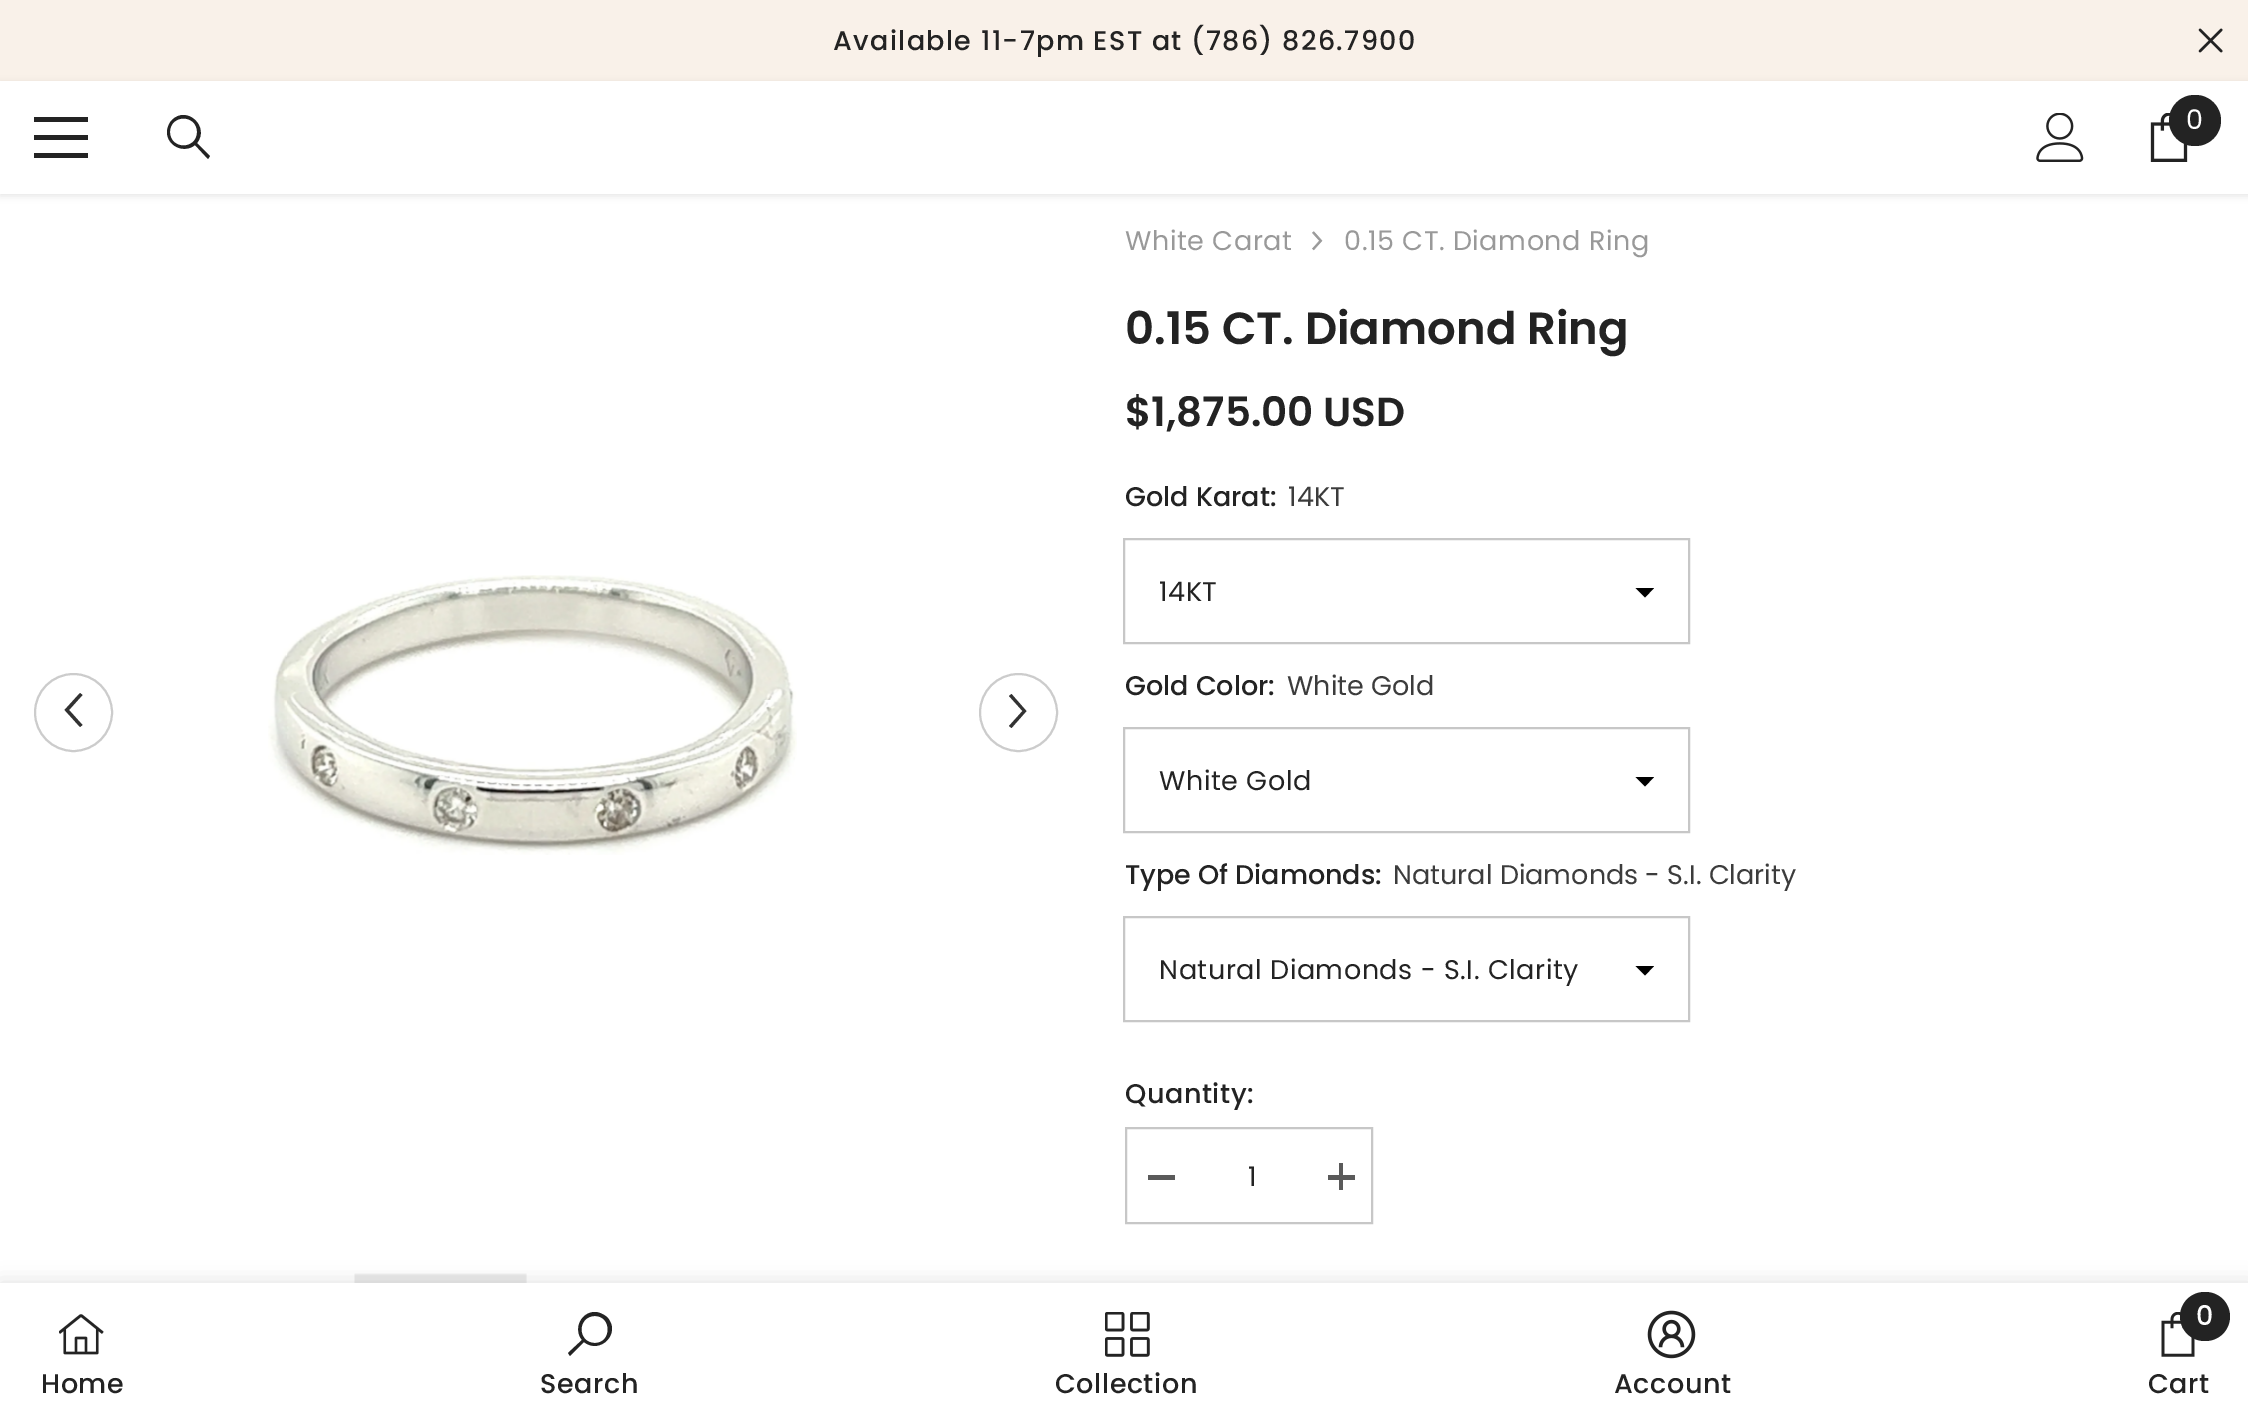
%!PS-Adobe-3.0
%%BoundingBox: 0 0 2248 1420
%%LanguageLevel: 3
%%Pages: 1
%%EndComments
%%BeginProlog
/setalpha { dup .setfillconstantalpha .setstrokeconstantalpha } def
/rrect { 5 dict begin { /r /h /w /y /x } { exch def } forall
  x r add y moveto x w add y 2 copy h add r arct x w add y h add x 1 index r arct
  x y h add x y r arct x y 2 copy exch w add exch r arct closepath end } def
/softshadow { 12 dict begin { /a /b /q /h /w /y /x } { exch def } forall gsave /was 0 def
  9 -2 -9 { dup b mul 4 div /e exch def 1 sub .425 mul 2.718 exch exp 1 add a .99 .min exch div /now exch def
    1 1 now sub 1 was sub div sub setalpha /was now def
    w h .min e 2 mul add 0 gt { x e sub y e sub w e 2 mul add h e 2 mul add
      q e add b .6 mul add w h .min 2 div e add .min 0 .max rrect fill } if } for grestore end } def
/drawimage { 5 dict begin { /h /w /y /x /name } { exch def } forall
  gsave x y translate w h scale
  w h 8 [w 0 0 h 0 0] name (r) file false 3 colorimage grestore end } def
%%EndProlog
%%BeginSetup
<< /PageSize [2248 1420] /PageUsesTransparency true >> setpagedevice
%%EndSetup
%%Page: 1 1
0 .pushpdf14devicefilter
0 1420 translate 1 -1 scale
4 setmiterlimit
1 setgray
0 0 2248 1420 rectfill
0.976 0.945 0.914 setrgbcolor
0 0 2248 81 rectfill
(images/1.raw) 2198 28 25 25 drawimage
0 setgray
0 83 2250 113 0 3.5 0.1 softshadow
1 setgray
0 81 2248 113 rectfill
0.137 setgray
34 135 54 5 rectfill
34 117 54 5 rectfill
34 153 54 5 rectfill
newpath 167 132 moveto 167 146 184 154 195 145 curveto 208 159 lineto 210 156 lineto 197 143 lineto 210 127 187 105 172 120 curveto 169 123 167 128 167 132 curveto closepath 170 132 moveto 170 114 197 114 197 132 curveto 197 150 170 150 170 132 curveto closepath fill
(images/2.raw) 2036 113 48 49 drawimage
(images/3.raw) 2150 113 38 49 drawimage
2169 95 52 51 25.5 rrect fill
0.8 setgray
2 setlinewidth
newpath 73.5 712.5 38.5 0 360 arc closepath stroke
0.196 setgray
newpath 80 727 moveto 82.5 725 lineto 69 710 lineto 82.5 695 lineto 80 693 lineto 64.5 710 lineto 65.5 711 lineto closepath fill
(images/4.raw) 268 575 529 280 drawimage
0.8 setgray
newpath 1018.5 712.5 38.5 0 360 arc closepath stroke
0.196 setgray
newpath 1011.5 694 moveto 1009 696 lineto 1022.5 711 lineto 1009 726 lineto 1011.5 728 lineto 1026.5 711 lineto 1025.5 710 lineto closepath fill
(images/5.raw) 354 1273 173 10 drawimage
(images/6.raw) 1312 231 11 20 drawimage
0.78 setgray
1124 539 565 104 rectstroke
0 setgray
newpath 1635.5 588 moveto 1645 597.5 lineto 1654 588 lineto closepath fill
0.78 setgray
1124 728 565 104 rectstroke
0 setgray
newpath 1635.5 777 moveto 1645 786.5 lineto 1654 777 lineto closepath fill
0.78 setgray
1124 917 565 104 rectstroke
0 setgray
newpath 1635.5 966 moveto 1645 975.5 lineto 1654 966 lineto closepath fill
0.78 setgray
1126 1128 246 95 rectstroke
0.353 setgray
1148 1175 27 5 rectfill
1328 1175 27 5 rectfill
1339 1163 4 27 rectfill
0 setgray
0 1283 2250 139 0 10 0.12 softshadow
1 setgray
0 1283 2248 137 rectfill
(images/7.raw) 59 1314 45 41 drawimage
0.137 setgray
newpath 595 1312 moveto 581 1312 573 1329 582 1340 curveto 568 1353 lineto 570 1356 lineto 584 1342 lineto 600 1355 622 1333 607 1317 curveto 603 1314 599 1312 595 1312 curveto closepath 595 1316 moveto 612 1316 612 1343 595 1343 curveto 577 1343 577 1316 595 1316 curveto closepath fill
(images/8.raw) 1105 1312 45 45 drawimage
(images/9.raw) 1647 1310 49 49 drawimage
(images/10.raw) 2161 1312 34 45 drawimage
2180 1292 50 49 24.5 rrect fill
/Poppins-Medium [27 0 0 -27 0 0] selectfont
833 50 moveto 1.35 0 (Available 11-7pm EST at \(786\) 826.7900) ashow
/Poppins-Regular [27 0 0 -27 0 0] selectfont
1 setgray
2186 129 moveto (0) show
0.6 setgray
1125 250 moveto 0.55 0 (White Carat) ashow
1344 250 moveto 0.55 0 (0.15 CT. Diamond Ring) ashow
/Poppins-SemiBold [45 0 0 -45 0 0] selectfont
0.137 setgray
1125 344 moveto (0.15 CT. Diamond Ring) show
/Poppins-SemiBold [40.5 0 0 -40.5 0 0] selectfont
1125 426 moveto ($1,875.00 USD) show
/Poppins-Medium [27 0 0 -27 0 0] selectfont
1125 506 moveto (Gold Karat:) show
/Poppins-Regular [27 0 0 -27 0 0] selectfont
0.235 setgray
1288 506 moveto (14KT) show
0.137 setgray
1159 601 moveto 0.55 0 (14KT) ashow
/Poppins-Medium [27 0 0 -27 0 0] selectfont
1125 695 moveto (Gold Color:) show
/Poppins-Regular [27 0 0 -27 0 0] selectfont
0.235 setgray
1287 695 moveto (White Gold) show
0.137 setgray
1159 790 moveto 0.55 0 (White Gold) ashow
/Poppins-Medium [27 0 0 -27 0 0] selectfont
1125 884 moveto (Type Of Diamonds:) show
/Poppins-Regular [27 0 0 -27 0 0] selectfont
0.235 setgray
1393 884 moveto (Natural Diamonds - S.I. Clarity) show
0.137 setgray
1159 979 moveto 0.55 0 (Natural Diamonds - S.I. Clarity) ashow
/Poppins-Medium [27 0 0 -27 0 0] selectfont
1125 1103 moveto 0.55 0 (Quantity:) ashow
/Poppins-Regular [27 0 0 -27 0 0] selectfont
1248 1186 moveto 0.55 0 (1) ashow
/Poppins-Medium [27 0 0 -27 0 0] selectfont
41 1393 moveto 0.55 0 (Home) ashow
540 1393 moveto 0.55 0 (Search) ashow
1055 1393 moveto 0.55 0 (Collection) ashow
1614 1393 moveto 0.55 0 (Account) ashow
1 setgray
2196 1325 moveto (0) show
0.137 setgray
2148 1393 moveto 0.55 0 (Cart) ashow
.poppdf14devicefilter showpage
%%EOF
